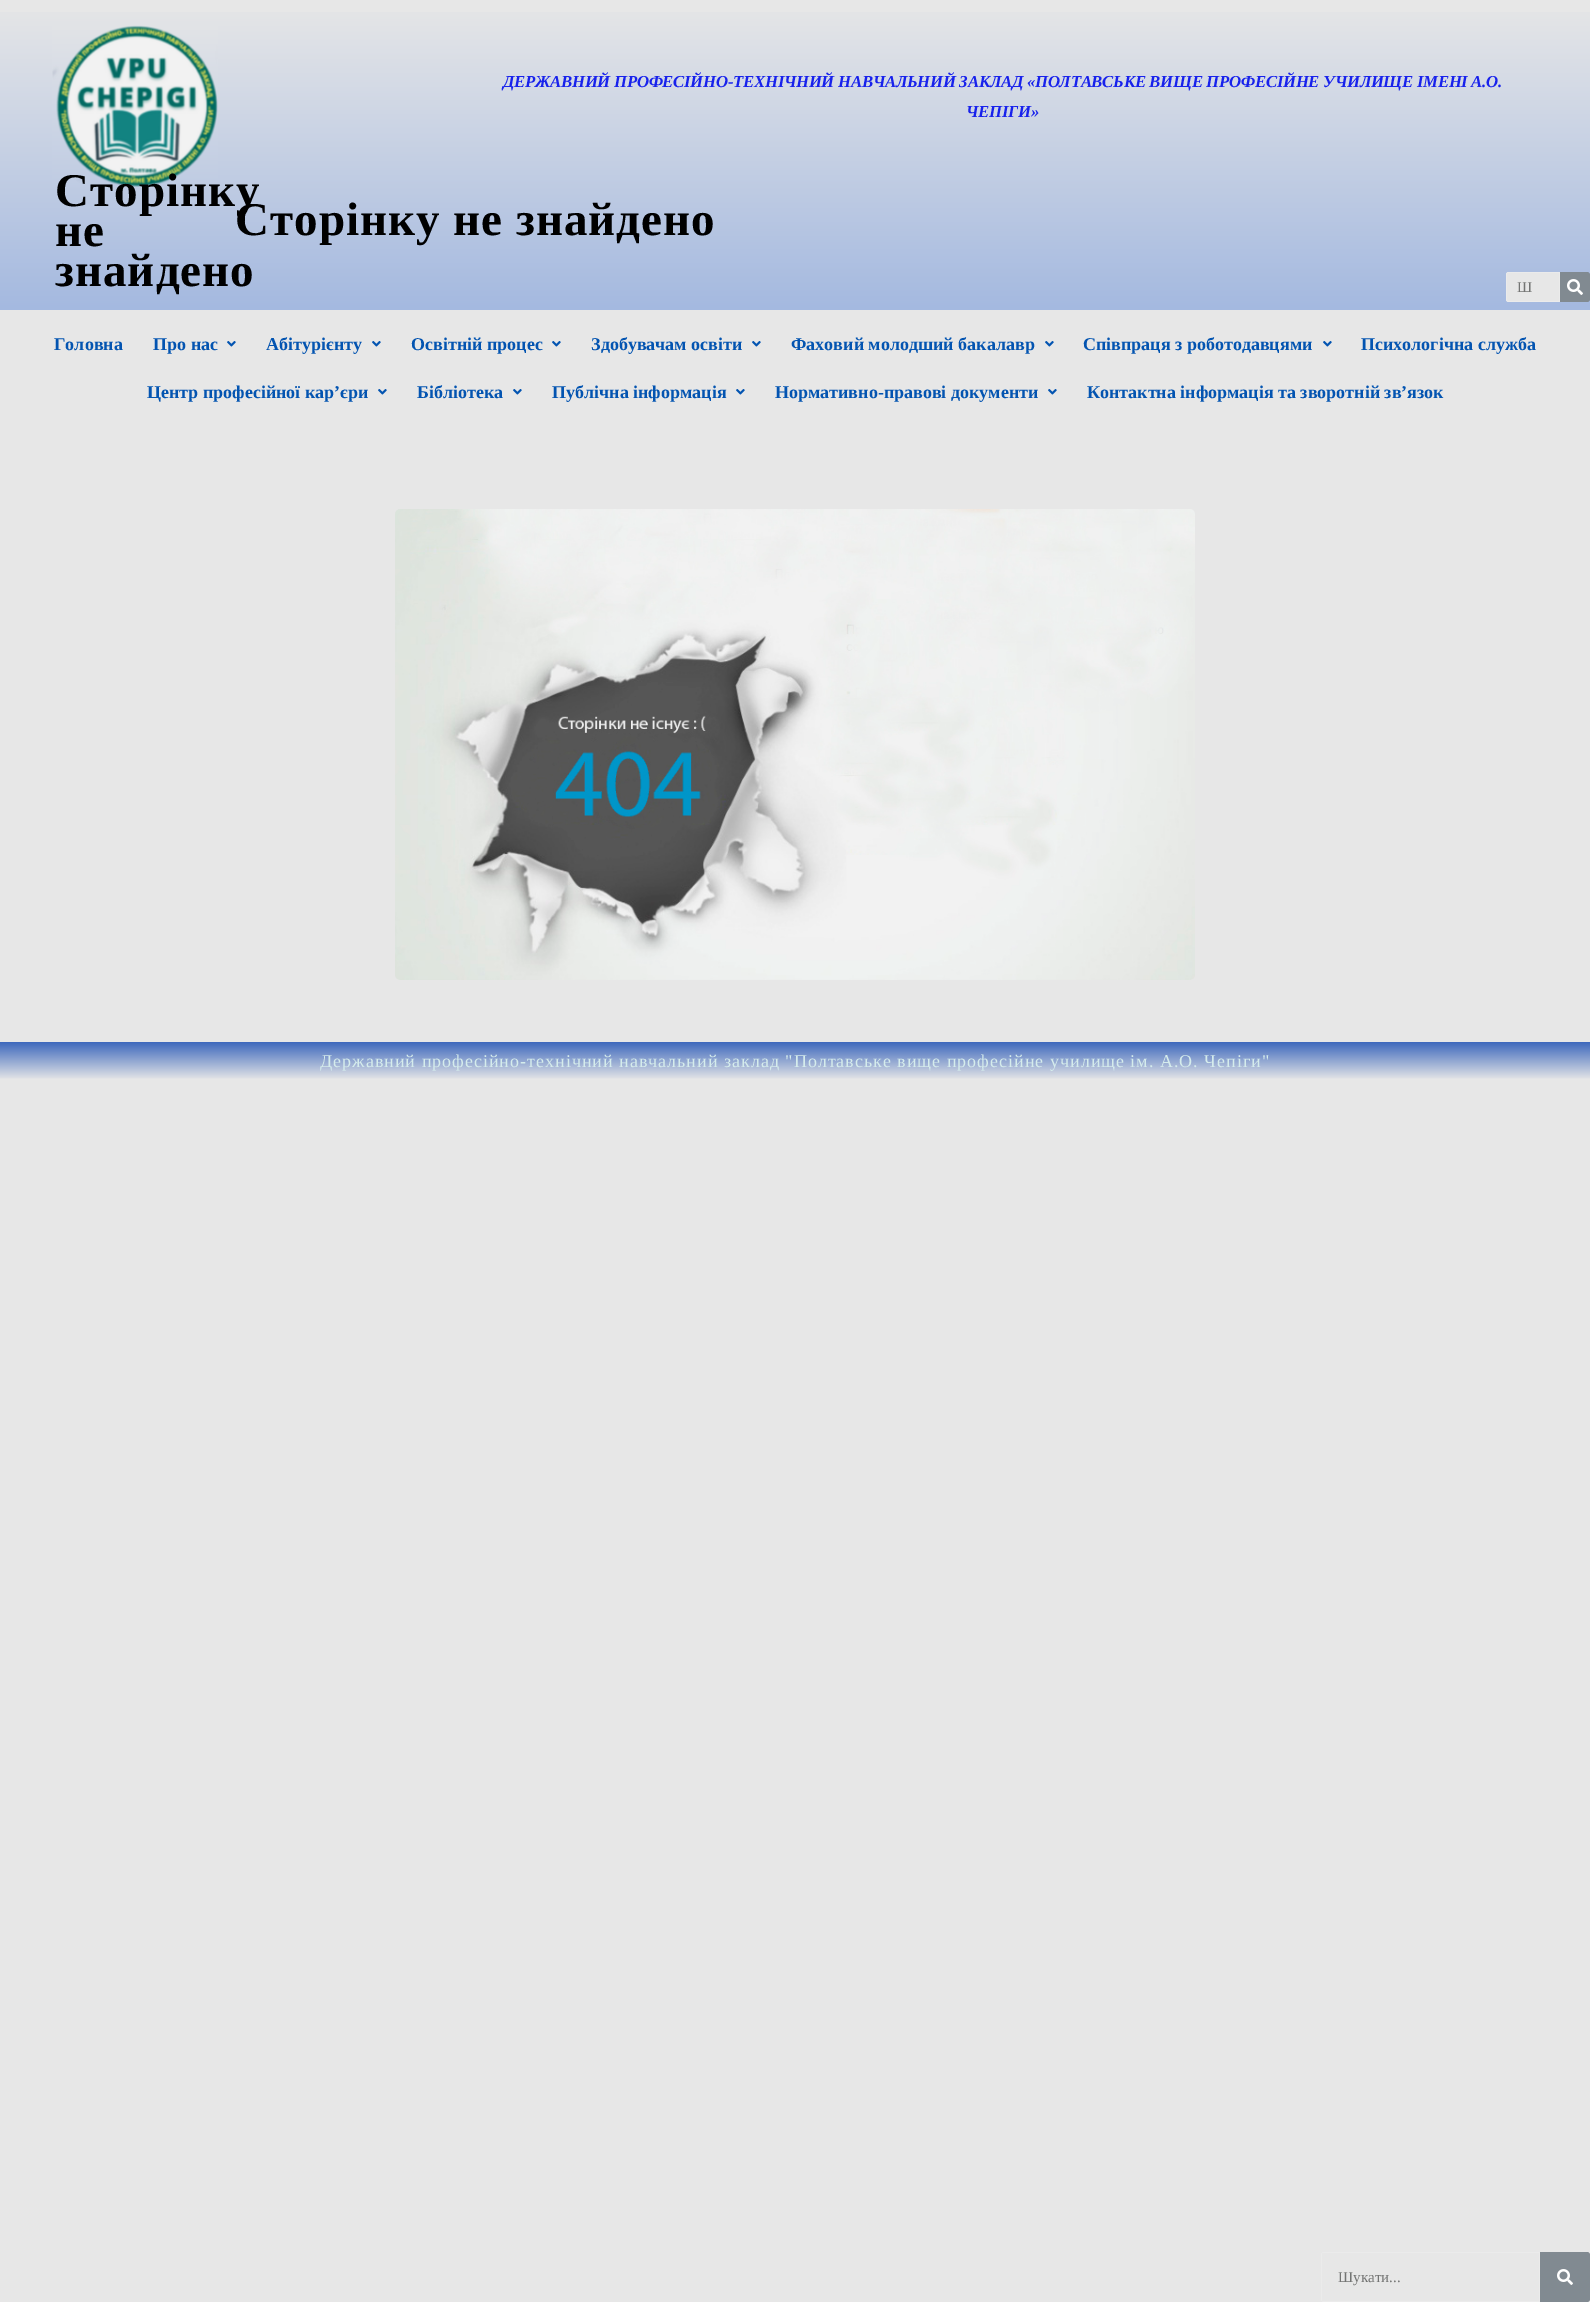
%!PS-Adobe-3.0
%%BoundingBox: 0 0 1590 2302
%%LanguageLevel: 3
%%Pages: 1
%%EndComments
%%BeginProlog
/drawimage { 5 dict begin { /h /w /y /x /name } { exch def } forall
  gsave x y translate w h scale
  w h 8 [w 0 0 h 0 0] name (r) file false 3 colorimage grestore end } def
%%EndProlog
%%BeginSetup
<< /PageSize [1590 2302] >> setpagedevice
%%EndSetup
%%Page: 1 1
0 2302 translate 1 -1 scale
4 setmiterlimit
0.906 setgray
0 0 1590 2302 rectfill
gsave newpath 0 12 moveto 1590 12 lineto 1590 310 lineto 0 310 lineto closepath clip newpath
<< /ShadingType 2 /ColorSpace /DeviceRGB /Coords [795 0 795 310] /Extend [true true] /Function << /FunctionType 2 /Domain [0 1] /C0 [0.906 0.906 0.906] /C1 [0.643 0.725 0.878] /N 1 >> >> shfill grestore
(images/1.raw) 52 25 166 162 drawimage
newpath 1509 272 moveto 1560 272 lineto 1560 302 lineto 1509 302 lineto 1507.5 302 1506 300.5 1506 299 curveto 1506 275 lineto 1506 273.5 1507.5 272 1509 272 curveto closepath fill
0.922 setgray
newpath 1509 272 moveto 1507 272 1506 273 1506 275 curveto 1506 299 lineto 1506 301 1507 302 1509 302 curveto 1560 302 lineto 1560 272 lineto closepath 1507 273 moveto 1507 301 lineto 1559 301 lineto 1559 273 lineto closepath eofill
0.506 0.541 0.569 setrgbcolor
newpath 1560 272 moveto 1587 272 lineto 1588.5 272 1590 273.5 1590 275 curveto 1590 299 lineto 1590 300.5 1588.5 302 1587 302 curveto 1560 302 lineto closepath fill
(images/2.raw) 1567 279 16 16 drawimage
(images/3.raw) 227 341 9 6 drawimage
(images/3.raw) 372 341 9 6 drawimage
(images/3.raw) 552 341 9 6 drawimage
(images/3.raw) 752 341 9 6 drawimage
(images/3.raw) 1045 341 9 6 drawimage
(images/3.raw) 1323 341 9 6 drawimage
(images/3.raw) 378 389 9 6 drawimage
(images/3.raw) 513 389 9 6 drawimage
(images/3.raw) 736 389 9 6 drawimage
(images/3.raw) 1048 389 9 6 drawimage
0.922 setgray
newpath 1324 2252 moveto 1322 2252 1321 2253 1321 2255 curveto 1321 2299 lineto 1321 2301 1322 2302 1324 2302 curveto 1540 2302 lineto 1540 2252 lineto closepath 1322 2253 moveto 1322 2301 lineto 1539 2301 lineto 1539 2253 lineto closepath eofill
0.506 0.541 0.569 setrgbcolor
newpath 1540 2252 moveto 1587 2252 lineto 1588.5 2252 1590 2253.5 1590 2255 curveto 1590 2299 lineto 1590 2300.5 1588.5 2302 1587 2302 curveto 1540 2302 lineto closepath fill
(images/2.raw) 1557 2269 16 16 drawimage
(images/4.raw) 395 509 800 471 drawimage
gsave newpath 0 1042 moveto 1590 1042 lineto 1590 1079 lineto 0 1079 lineto closepath clip newpath
<< /ShadingType 2 /ColorSpace /DeviceRGB /Coords [795 1042 795 1080] /Extend [true true] /Function << /FunctionType 2 /Domain [0 1] /C0 [0.239 0.408 0.741] /C1 [0.906 0.906 0.906] /N 1 >> >> shfill grestore
/LiberationSerif-Bold [47 0 0 -47 0 0] selectfont
0 setgray
55 206 moveto 1 0 (Сторінку) ashow
55 246 moveto 1 0 (не) ashow
55 286 moveto 1 0 (знайдено) ashow
/LiberationSerif-BoldItalic [16.8 0 0 -16.8 0 0] selectfont
0.094 0.133 0.925 setrgbcolor
503 87 moveto -0.32 0 (ДЕРЖАВНИЙ ПРОФЕСІЙНО-ТЕХНІЧНИЙ НАВЧАЛЬНИЙ ЗАКЛАД «ПОЛТАВСЬКЕ ВИЩЕ ПРОФЕСІЙНЕ УЧИЛИЩЕ ІМЕНІ А.О.) ashow
966 117 moveto -0.32 0 (ЧЕПІГИ») ashow
/LiberationSerif-Bold [47 0 0 -47 0 0] selectfont
0 setgray
235 235 moveto 1 0 (Сторінку не знайдено) ashow
/LiberationSerif-Regular [15 0 0 -15 0 0] selectfont
0.451 0.455 0.451 setrgbcolor
1517 292 moveto (Ш) show
/LiberationSerif-Bold [18 0 0 -18 0 0] selectfont
0.012 0.329 0.694 setrgbcolor
54 350 moveto (Головна) show
153 350 moveto (Про нас) show
266 350 moveto (Абітурієнту) show
411 350 moveto (Освітній процес) show
591 350 moveto (Здобувачам освіти) show
791 350 moveto (Фаховий молодший бакалавр) show
1083 350 moveto (Співпраця з роботодавцями) show
1361 350 moveto (Психологічна служба) show
147 398 moveto (Центр професійної кар’єри) show
417 398 moveto (Бібліотека) show
552 398 moveto (Публічна інформація) show
775 398 moveto (Нормативно-правові документи) show
1087 398 moveto (Контактна інформація та зворотній зв’язок) show
/LiberationSerif-Regular [15 0 0 -15 0 0] selectfont
0.451 0.455 0.451 setrgbcolor
1338 2282 moveto (Шукати...) show
/LiberationSerif-Regular [18 0 0 -18 0 0] selectfont
0.835 0.925 0.925 setrgbcolor
320 1067 moveto 1 0 (Державний професійно-технічний навчальний заклад "Полтавське вище професійне училище ім. А.О. Чепіги") ashow
showpage
%%EOF
